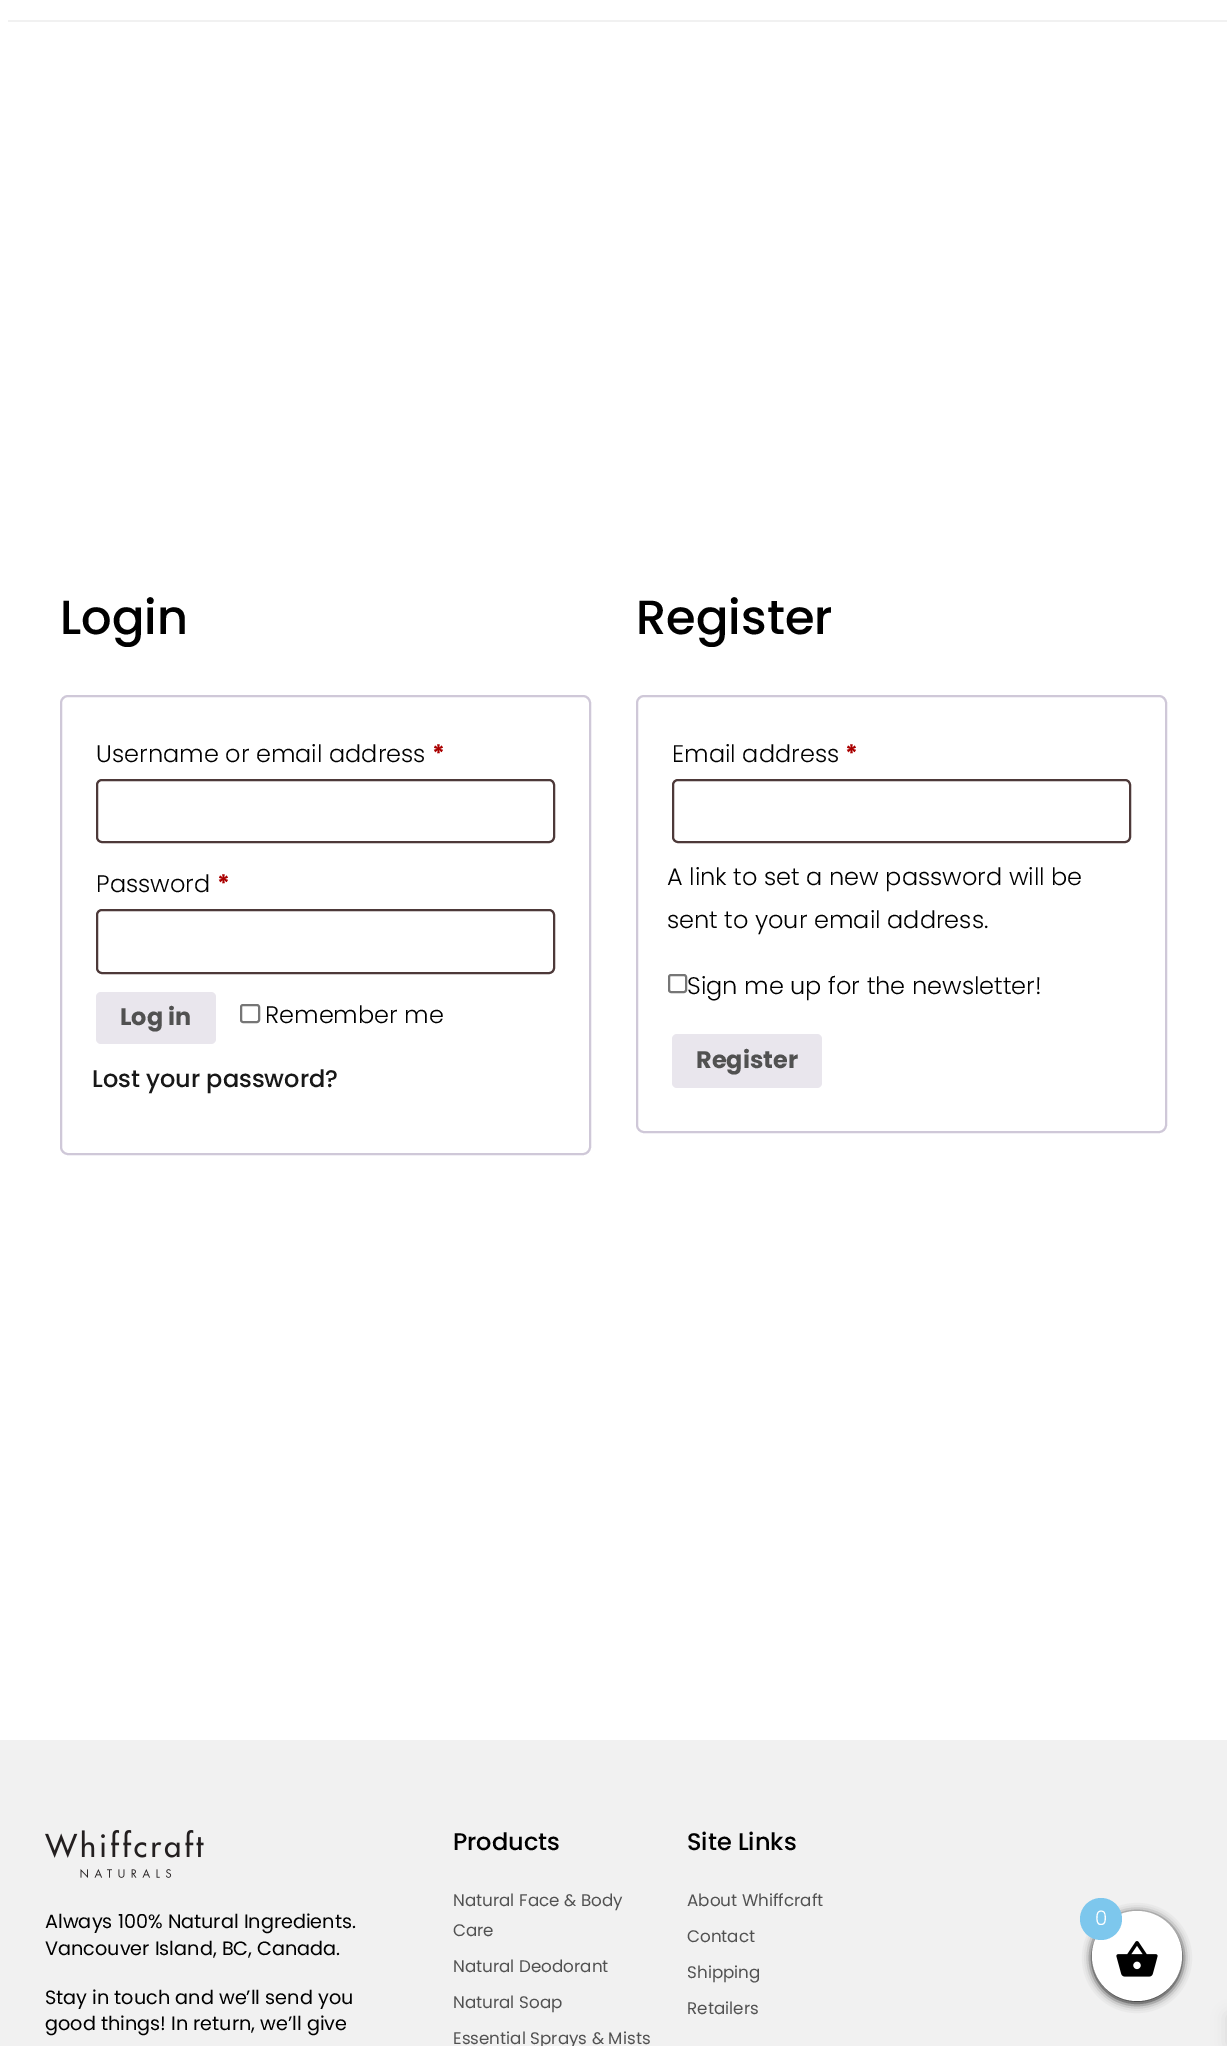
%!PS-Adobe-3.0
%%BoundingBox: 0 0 1227 2046
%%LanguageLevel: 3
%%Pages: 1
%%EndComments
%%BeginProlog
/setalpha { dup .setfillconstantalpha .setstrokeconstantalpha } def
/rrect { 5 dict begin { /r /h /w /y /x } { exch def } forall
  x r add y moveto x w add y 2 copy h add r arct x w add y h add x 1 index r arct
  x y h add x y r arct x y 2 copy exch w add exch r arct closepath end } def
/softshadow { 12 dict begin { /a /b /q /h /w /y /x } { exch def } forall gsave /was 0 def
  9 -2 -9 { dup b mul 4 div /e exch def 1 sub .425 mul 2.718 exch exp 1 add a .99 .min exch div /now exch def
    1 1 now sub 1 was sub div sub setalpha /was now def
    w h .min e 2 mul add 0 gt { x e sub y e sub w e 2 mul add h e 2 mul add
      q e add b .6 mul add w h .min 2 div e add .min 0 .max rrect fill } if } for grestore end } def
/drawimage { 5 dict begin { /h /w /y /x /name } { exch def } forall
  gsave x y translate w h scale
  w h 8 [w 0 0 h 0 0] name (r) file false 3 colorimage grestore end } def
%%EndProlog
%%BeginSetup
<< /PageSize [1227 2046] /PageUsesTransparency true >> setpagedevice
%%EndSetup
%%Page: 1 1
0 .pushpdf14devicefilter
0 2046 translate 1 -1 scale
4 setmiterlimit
1 setgray
0 0 1227 2046 rectfill
0.945 setgray
8 20 1219 2 rectfill
0.812 0.784 0.847 setrgbcolor
2 setlinewidth
61 696 529 458 7 rrect stroke
0.302 0.224 0.224 setrgbcolor
97 780 457 62 5 rrect stroke
97 910 457 63 5 rrect stroke
0.914 0.902 0.929 setrgbcolor
96 992 120 52 5 rrect fill
0.463 setgray
241 1005 18 17 2 rrect stroke
0.812 0.784 0.847 setrgbcolor
637 696 529 436 7 rrect stroke
0.302 0.224 0.224 setrgbcolor
673 780 457 62 5 rrect stroke
0.463 setgray
669 975 17 17 2 rrect stroke
0.914 0.902 0.929 setrgbcolor
672 1034 150 54 5 rrect fill
0.945 setgray
0 1740 1227 306 rectfill
(images/1.raw) 45 1830 159 48 drawimage
0 setgray
1092 1913 90 90 45 4.5 1 softshadow
1 setgray
newpath 1137 1956 45 0 360 arc closepath fill
0.49 0.78 0.929 setrgbcolor
newpath 1101 1919 21 0 360 arc closepath fill
(images/2.raw) 1116 1941 42 36 drawimage
0 setgray
1227 2015 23 30 0 7.5 0.1 softshadow
/Poppins-Medium [48 0 0 -48 0 0] selectfont
60 634 moveto (Login) show
/Poppins-Light [24 0 0 -24 0 0] selectfont
96 762 moveto (Username or email address) show
/Poppins-Bold [24 0 0 -24 0 0] selectfont
0.667 0 0 setrgbcolor
432 762 moveto (*) show
/Poppins-Light [24 0 0 -24 0 0] selectfont
0 setgray
96 892 moveto (Password) show
/Poppins-Bold [24 0 0 -24 0 0] selectfont
0.667 0 0 setrgbcolor
217 892 moveto (*) show
0.318 setgray
120 1025 moveto (Log in) show
/Poppins-Light [24 0 0 -24 0 0] selectfont
0 setgray
265 1023 moveto (Remember me) show
/Poppins-Medium [24 0 0 -24 0 0] selectfont
0.094 setgray
92 1087 moveto (Lost your password?) show
/Poppins-Medium [48 0 0 -48 0 0] selectfont
0 setgray
636 634 moveto (Register) show
/Poppins-Light [24 0 0 -24 0 0] selectfont
672 762 moveto (Email address) show
/Poppins-Bold [24 0 0 -24 0 0] selectfont
0.667 0 0 setrgbcolor
845 762 moveto (*) show
/Poppins-Light [24 0 0 -24 0 0] selectfont
0 setgray
667 885 moveto (A link to set a new password will be) show
667 928 moveto (sent to your email address.) show
687 994 moveto (Sign me up for the newsletter!) show
/Poppins-Bold [24 0 0 -24 0 0] selectfont
0.318 setgray
696 1068 moveto (Register) show
/Poppins-Regular [19.25 0 0 -19.25 0 0] selectfont
0 setgray
45 1928 moveto (Always 100% Natural Ingredients.) show
45 1955 moveto (Vancouver Island, BC, Canada.) show
45 2004 moveto (Stay in touch and we’ll send you) show
45 2030 moveto (good things! In return, we’ll give) show
/Poppins-Medium [24 0 0 -24 0 0] selectfont
453 1850 moveto (Products) show
/Poppins-Regular [16.75 0 0 -16.75 0 0] selectfont
0.318 setgray
453 1906 moveto (Natural Face & Body) show
453 1936 moveto (Care) show
453 1972 moveto (Natural Deodorant) show
453 2008 moveto (Natural Soap) show
453 2044 moveto (Essential Sprays & Mists) show
/Poppins-Medium [24 0 0 -24 0 0] selectfont
0 setgray
687 1850 moveto (Site Links) show
/Poppins-Regular [16.75 0 0 -16.75 0 0] selectfont
0.318 setgray
687 1906 moveto (About Whiffcraft) show
687 1942 moveto (Contact) show
687 1978 moveto (Shipping) show
687 2014 moveto (Retailers) show
/Poppins-Light [20 0 0 -20 0 0] selectfont
1 setgray
1095 1925 moveto (0) show
.poppdf14devicefilter showpage
%%EOF
